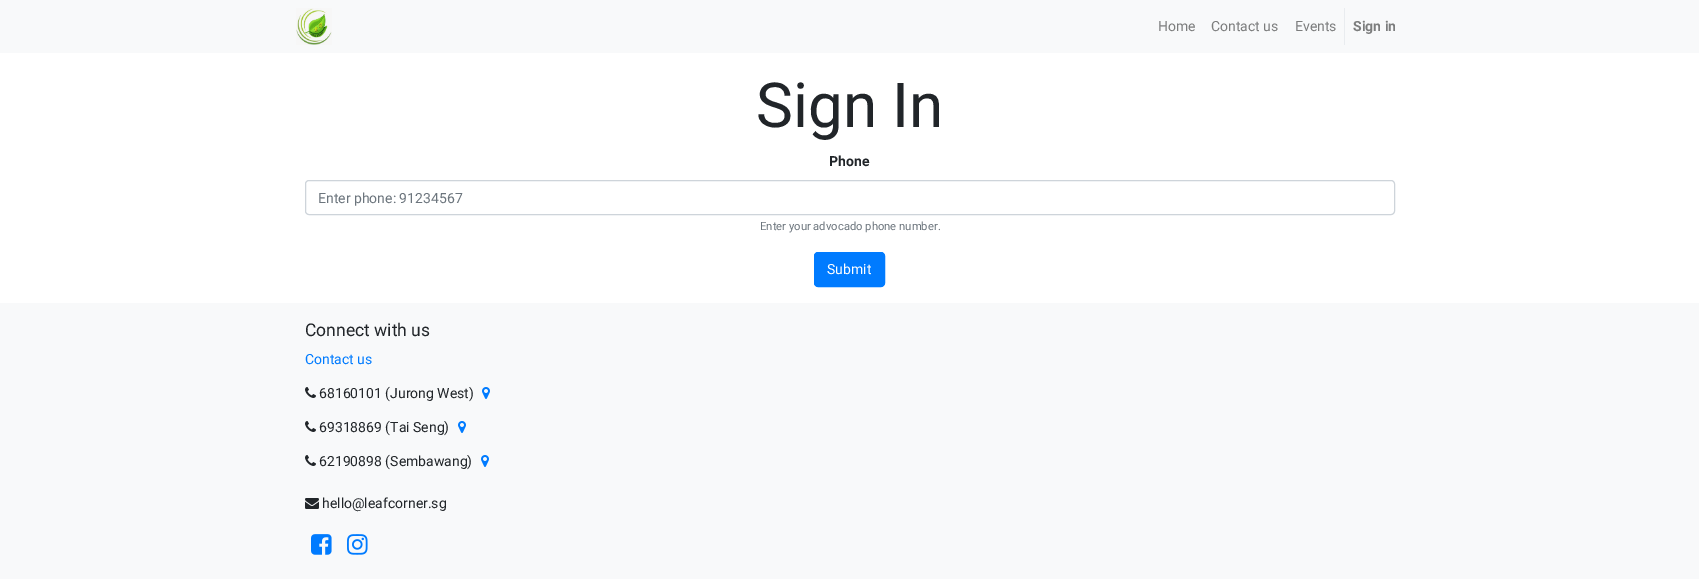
%!PS-Adobe-3.0
%%BoundingBox: 0 0 1699 579
%%LanguageLevel: 3
%%Pages: 1
%%EndComments
%%BeginProlog
/rrect { 5 dict begin { /r /h /w /y /x } { exch def } forall
  x r add y moveto x w add y 2 copy h add r arct x w add y h add x 1 index r arct
  x y h add x y r arct x y 2 copy exch w add exch r arct closepath end } def
/drawimage { 5 dict begin { /h /w /y /x /name } { exch def } forall
  gsave x y translate w h scale
  w h 8 [w 0 0 h 0 0] name (r) file false 3 colorimage grestore end } def
%%EndProlog
%%BeginSetup
<< /PageSize [1699 579] >> setpagedevice
%%EndSetup
%%Page: 1 1
0 579 translate 1 -1 scale
4 setmiterlimit
1 setgray
0 0 1699 579 rectfill
0.973 0.976 0.98 setrgbcolor
0 0 1699 53 rectfill
(images/1.raw) 296 8 36 37 drawimage
0.914 0.925 0.937 setrgbcolor
1344 8 1 37 rectfill
0.808 0.831 0.855 setrgbcolor
305.5 180.5 1089 34 3.5 rrect stroke
0 0.482 1 setrgbcolor
814.5 252.5 70 34 3.5 rrect gsave fill grestore
stroke
0.973 0.976 0.98 setrgbcolor
0 303 1699 276 rectfill
(images/2.raw) 305 387 11 11 drawimage
(images/3.raw) 482 387 8 12 drawimage
(images/2.raw) 305 421 11 11 drawimage
(images/3.raw) 458 421 8 12 drawimage
(images/2.raw) 305 455 11 11 drawimage
(images/3.raw) 481 455 8 12 drawimage
(images/4.raw) 305 498 14 11 drawimage
(images/5.raw) 311 534 21 21 drawimage
(images/6.raw) 347 534 21 21 drawimage
/Roboto-Regular [14 0 0 -14 0 0] selectfont
0.486 0.49 0.49 setrgbcolor
1158 31 moveto (Home) show
1211 31 moveto (Contact us) show
1295 31 moveto (Events) show
/Roboto-Bold [14 0 0 -14 0 0] selectfont
1353 31 moveto (Sign in) show
/Roboto-Regular [62 0 0 -62 0 0] selectfont
0.129 0.145 0.161 setrgbcolor
756 127 moveto (Sign In) show
/Roboto-Bold [14 0 0 -14 0 0] selectfont
829 166 moveto (Phone) show
/Roboto-Regular [14 0 0 -14 0 0] selectfont
0.424 0.459 0.49 setrgbcolor
318 203 moveto (Enter phone: 91234567) show
/Roboto-Regular [11.25 0 0 -11.25 0 0] selectfont
760 230 moveto (Enter your advocado phone number.) show
/Roboto-Regular [14 0 0 -14 0 0] selectfont
1 setgray
827 274 moveto (Submit) show
/Roboto-Regular [17.5 0 0 -17.5 0 0] selectfont
0.129 0.145 0.161 setrgbcolor
305 336 moveto (Connect with us) show
/Roboto-Regular [14 0 0 -14 0 0] selectfont
0 0.482 1 setrgbcolor
305 364 moveto (Contact us) show
0.129 0.145 0.161 setrgbcolor
319 398 moveto (68160101 \(Jurong West\)) show
319 432 moveto (69318869 \(Tai Seng\)) show
319 466 moveto (62190898 \(Sembawang\)) show
322 508 moveto (hello@leafcorner.sg) show
showpage
%%EOF
